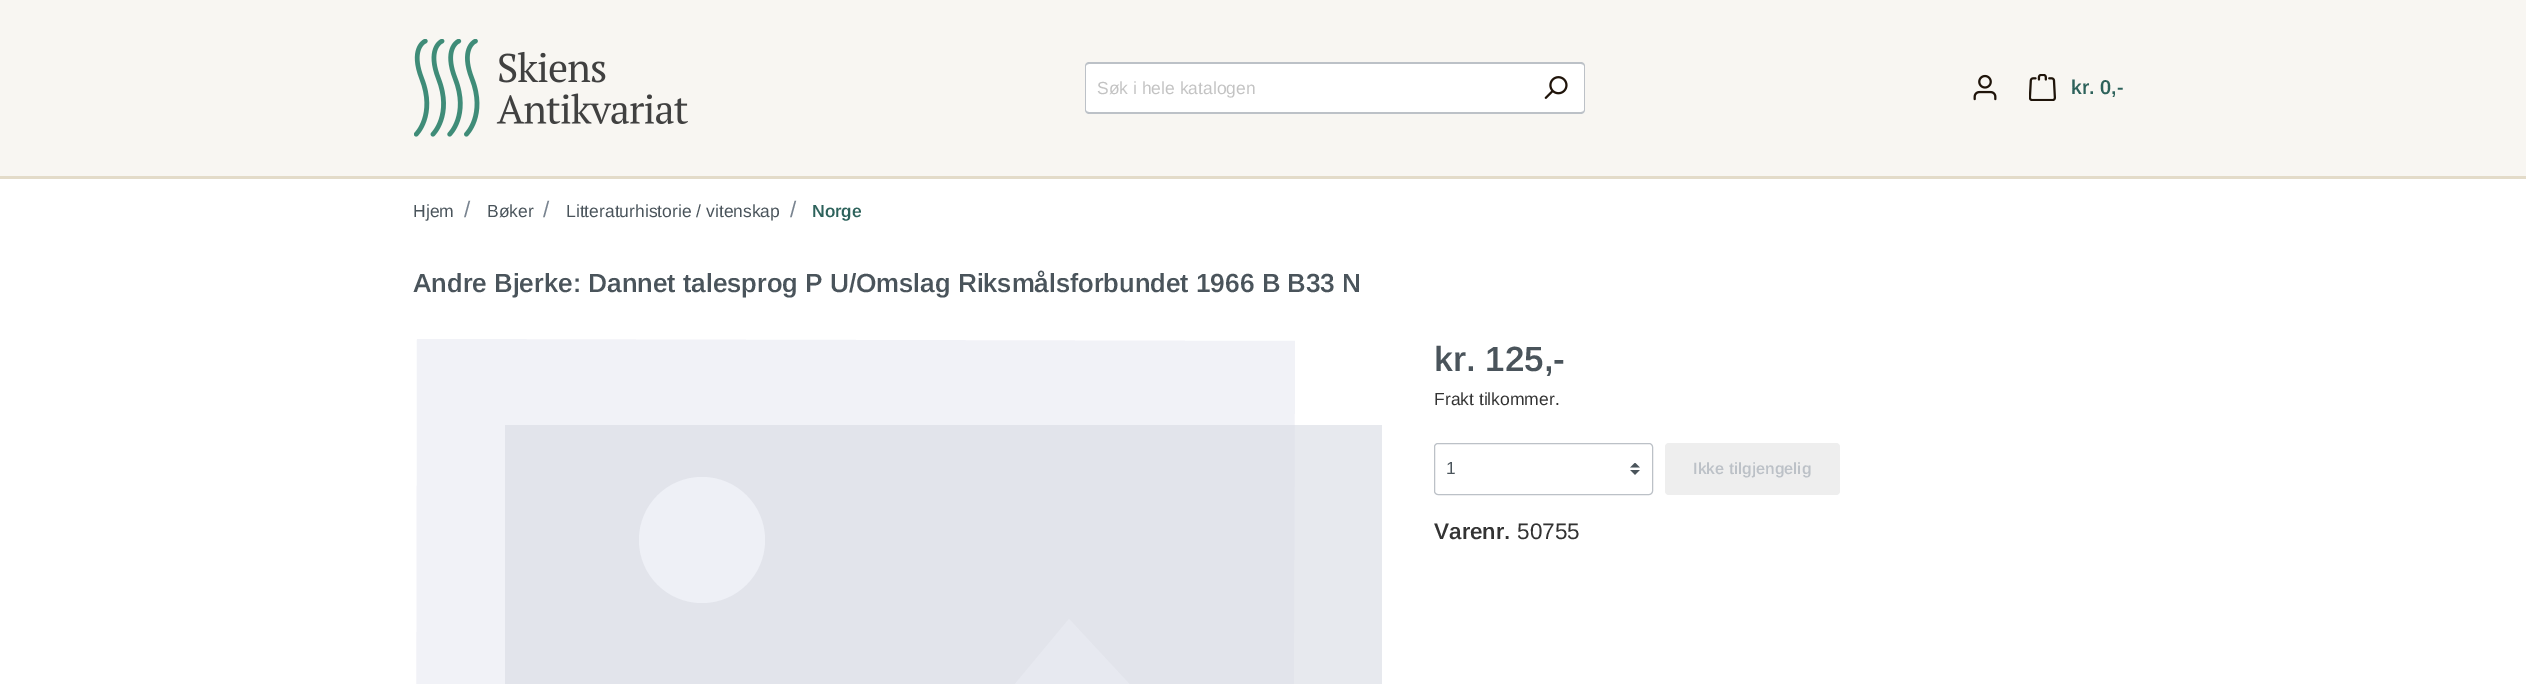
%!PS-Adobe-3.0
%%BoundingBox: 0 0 2526 684
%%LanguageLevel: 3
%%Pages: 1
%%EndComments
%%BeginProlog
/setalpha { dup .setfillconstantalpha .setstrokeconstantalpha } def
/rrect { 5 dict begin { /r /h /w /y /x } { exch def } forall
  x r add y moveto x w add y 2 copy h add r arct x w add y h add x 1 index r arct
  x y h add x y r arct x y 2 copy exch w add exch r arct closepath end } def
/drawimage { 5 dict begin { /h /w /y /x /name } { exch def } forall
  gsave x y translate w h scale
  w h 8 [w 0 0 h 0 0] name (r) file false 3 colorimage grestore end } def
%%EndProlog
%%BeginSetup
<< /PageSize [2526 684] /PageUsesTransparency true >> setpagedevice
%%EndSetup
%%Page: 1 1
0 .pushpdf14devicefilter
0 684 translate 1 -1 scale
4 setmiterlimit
1 setgray
0 0 2526 684 rectfill
0.973 0.965 0.949 setrgbcolor
0 0 2526 176 rectfill
0.89 0.859 0.788 setrgbcolor
0 176 2526 3 rectfill
(images/1.raw) 414 39 274 98 drawimage
1 setgray
newpath 1089 63 moveto 1528 63 lineto 1528 114 lineto 1089 114 lineto 1087 114 1085 112 1085 110 curveto 1085 67 lineto 1085 65 1087 63 1089 63 curveto closepath fill
0.737 0.757 0.78 setrgbcolor
newpath 1089 62 moveto 1528 62 lineto 1528 114 lineto 1089 114 lineto 1087 114 1085 112 1085 110 curveto 1085 66 lineto 1085 64 1087 62 1089 62 curveto closepath 1089 64 moveto 1528 64 lineto 1528 112 lineto 1089 112 lineto 1087 112 1086 111 1086 110 curveto 1086 66 lineto 1086 65 1087 64 1089 64 curveto closepath eofill
1 setgray
newpath 1526 63 moveto 1581 63 lineto 1583 63 1585 65 1585 67 curveto 1585 110 lineto 1585 112 1583 114 1581 114 curveto 1526 114 lineto closepath fill
0.737 0.757 0.78 setrgbcolor
newpath 1526 62 moveto 1581 62 lineto 1583 62 1585 64 1585 66 curveto 1585 110 lineto 1585 112 1583 114 1581 114 curveto 1526 114 lineto closepath 1526 64 moveto 1581 64 lineto 1583 64 1584 65 1584 66 curveto 1584 110 lineto 1584 111 1583 112 1581 112 curveto 1526 112 lineto closepath eofill
(images/2.raw) 1544 76 24 23 drawimage
(images/3.raw) 1973 74 24 27 drawimage
(images/4.raw) 2029 74 27 27 drawimage
0.945 0.949 0.969 setrgbcolor
newpath 416 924 moveto 417 339 lineto 1295 341 lineto 1293 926 lineto closepath fill
0.65 setalpha
0.855 0.867 0.898 setrgbcolor
505 425 877 259 rectfill
1 setalpha
0.906 0.914 0.941 setrgbcolor
newpath 744 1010 moveto 1382 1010 lineto 1382 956 lineto 1069 619 lineto closepath eofill
0.933 0.941 0.965 setrgbcolor
newpath 702 540 63 0 360 arc closepath fill
(images/5.raw) 1630 463 10 12 drawimage
0.737 0.757 0.78 setrgbcolor
1434.5 443.5 218 51 3.5 rrect stroke
0.933 setgray
1665 443 175 52 4 rrect fill
/Arimo-Regular [17.5 0 0 -17.5 0 0] selectfont
0.765 setgray
1097 94 moveto (Søk i hele katalogen) show
/Arimo-SemiBold [20 0 0 -20 0 0] selectfont
0.176 0.384 0.357 setrgbcolor
2071 94 moveto (kr. 0,-) show
/Arimo-Regular [17.5 0 0 -17.5 0 0] selectfont
0.29 0.329 0.357 setrgbcolor
413 217 moveto (Hjem) show
/Arimo-Regular [22.5 0 0 -22.5 0 0] selectfont
0.475 0.518 0.565 setrgbcolor
464 217 moveto (/) show
/Arimo-Regular [17.5 0 0 -17.5 0 0] selectfont
0.29 0.329 0.357 setrgbcolor
487 217 moveto (Bøker) show
/Arimo-Regular [22.5 0 0 -22.5 0 0] selectfont
0.475 0.518 0.565 setrgbcolor
543 217 moveto (/) show
/Arimo-Regular [17.5 0 0 -17.5 0 0] selectfont
0.29 0.329 0.357 setrgbcolor
566 217 moveto (Litteraturhistorie / vitenskap) show
/Arimo-Regular [22.5 0 0 -22.5 0 0] selectfont
0.475 0.518 0.565 setrgbcolor
790 217 moveto (/) show
/Arimo-SemiBold [17.5 0 0 -17.5 0 0] selectfont
0.176 0.384 0.357 setrgbcolor
812 217 moveto (Norge) show
/Arimo-SemiBold [26.25 0 0 -26.25 0 0] selectfont
0.29 0.329 0.357 setrgbcolor
413 292 moveto (Andre Bjerke: Dannet talesprog P U/Omslag Riksmålsforbundet 1966 B B33 N) show
/Arimo-SemiBold [35 0 0 -35 0 0] selectfont
1434 371 moveto (kr. 125,-) show
/Arimo-Regular [17.5 0 0 -17.5 0 0] selectfont
0.2 setgray
1434 405 moveto (Frakt tilkommer.) show
0.29 0.329 0.357 setrgbcolor
1446 474 moveto (1) show
/Arimo-SemiBold [16.25 0 0 -16.25 0 0] selectfont
0.737 0.757 0.78 setrgbcolor
1693 474 moveto (Ikke tilgjengelig) show
/Arimo-SemiBold [22.5 0 0 -22.5 0 0] selectfont
0.2 setgray
1434 539 moveto (Varenr.) show
/Arimo-Regular [22.5 0 0 -22.5 0 0] selectfont
1517 539 moveto (50755) show
.poppdf14devicefilter showpage
%%EOF
